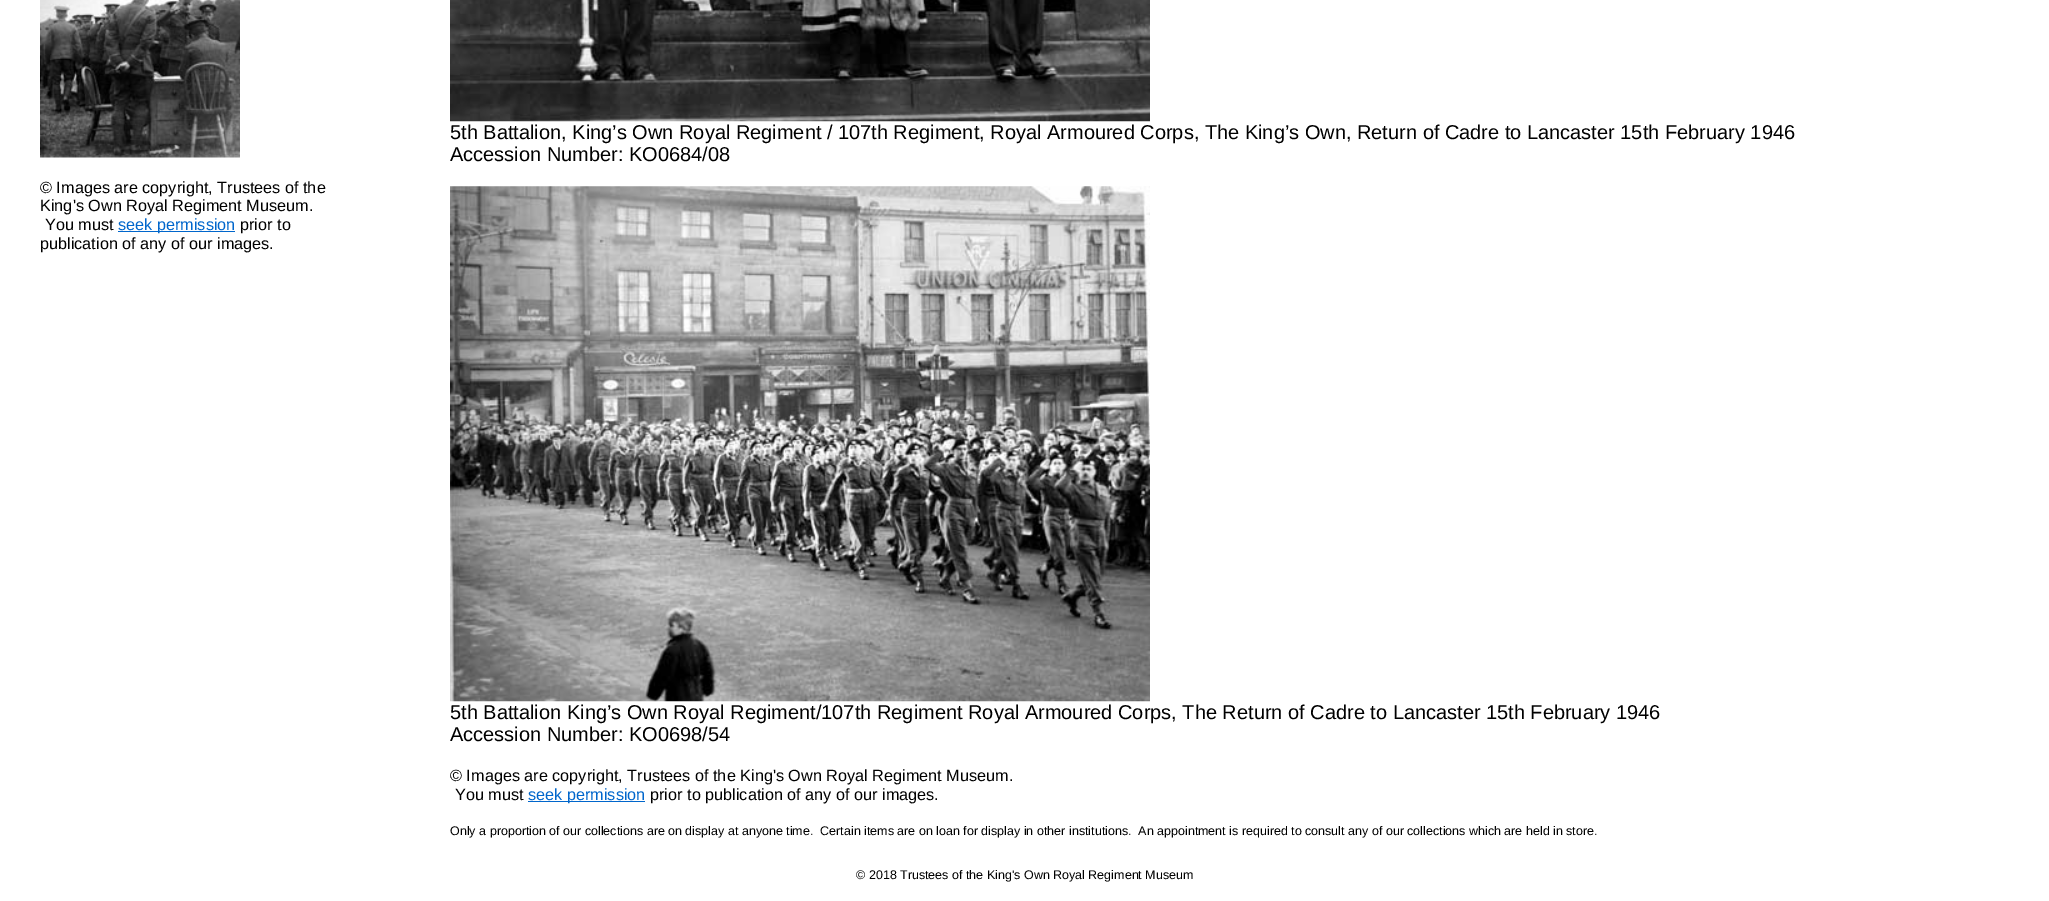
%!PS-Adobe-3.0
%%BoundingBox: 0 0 2049 901
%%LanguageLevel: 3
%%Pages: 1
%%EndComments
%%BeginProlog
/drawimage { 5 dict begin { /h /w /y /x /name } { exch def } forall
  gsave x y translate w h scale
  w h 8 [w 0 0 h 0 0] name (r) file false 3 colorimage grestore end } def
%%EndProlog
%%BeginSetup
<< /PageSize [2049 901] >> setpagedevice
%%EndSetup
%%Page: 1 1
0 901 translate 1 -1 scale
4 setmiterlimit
1 setgray
0 0 2049 901 rectfill
(images/1.raw) 40 0 200 158 drawimage
0 0.4 0.8 setrgbcolor
118 231 117 1 rectfill
(images/2.raw) 450 0 700 122 drawimage
(images/3.raw) 450 186 700 516 drawimage
528 801 117 1 rectfill
/LiberationSans-Regular [16.25 0 0 -16.25 0 0] selectfont
0 setgray
40 193 moveto (© Images are copyright, Trustees of the) show
40 211 moveto (King's Own Royal Regiment Museum.) show
45 230 moveto (You must) show
0 0.4 0.8 setrgbcolor
118 230 moveto (seek permission) show
0 setgray
240 230 moveto (prior to) show
40 249 moveto (publication of any of our images.) show
/LiberationSans-Regular [20 0 0 -20 0 0] selectfont
450 139 moveto (5th Battalion, King’s Own Royal Regiment / 107th Regiment, Royal Armoured Corps, The King’s Own, Return of Cadre to Lancaster 15th February 1946) show
450 161 moveto (Accession Number: KO0684/08) show
450 719 moveto (5th Battalion King’s Own Royal Regiment/107th Regiment Royal Armoured Corps, The Return of Cadre to Lancaster 15th February 1946) show
450 741 moveto (Accession Number: KO0698/54) show
/LiberationSans-Regular [16.25 0 0 -16.25 0 0] selectfont
450 781 moveto (© Images are copyright, Trustees of the King's Own Royal Regiment Museum.) show
455 800 moveto (You must) show
0 0.4 0.8 setrgbcolor
528 800 moveto (seek permission) show
0 setgray
650 800 moveto (prior to publication of any of our images.) show
/LiberationSans-Regular [12.5 0 0 -12.5 0 0] selectfont
450 835 moveto (Only a proportion of our collections are on display at anyone time.  Certain items are on loan for display in other institutions.  An appointment is required to consult any of our collections which are held in store.) show
856 879 moveto (© 2018 Trustees of the King's Own Royal Regiment Museum) show
showpage
%%EOF
